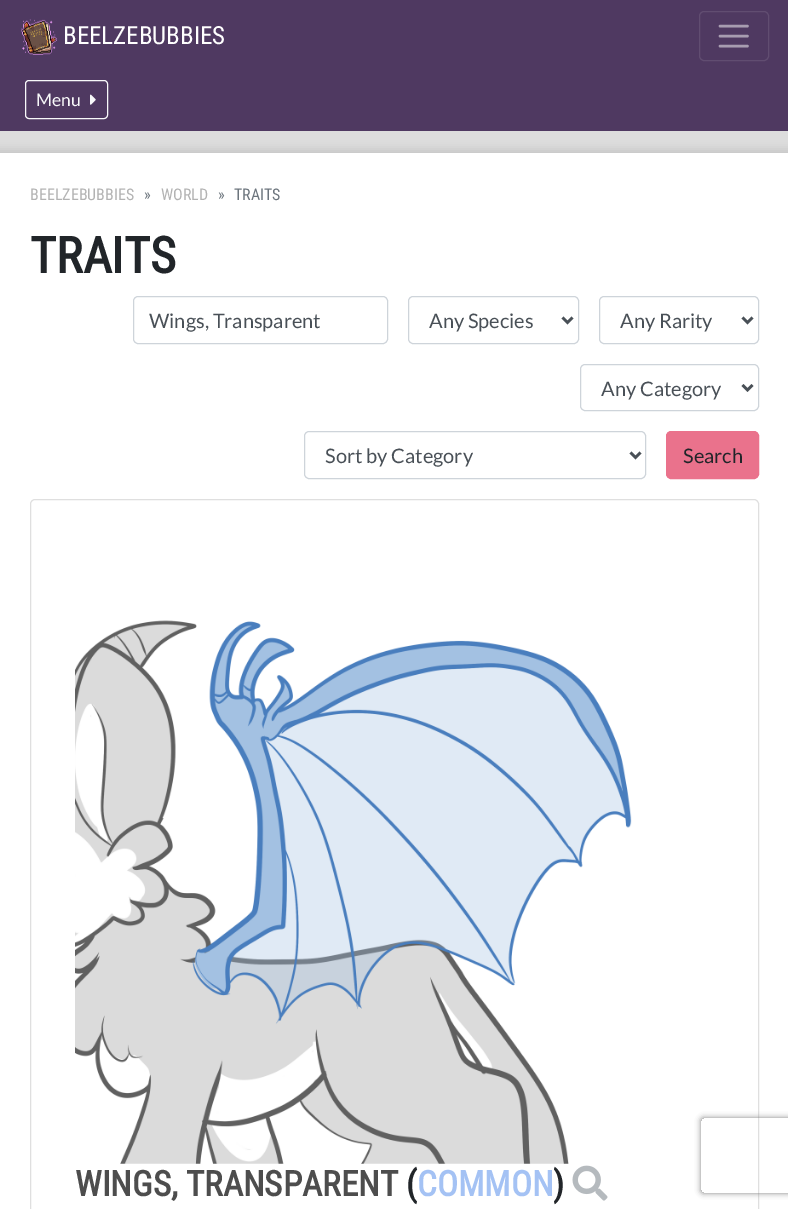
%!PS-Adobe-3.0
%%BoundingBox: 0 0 788 1209
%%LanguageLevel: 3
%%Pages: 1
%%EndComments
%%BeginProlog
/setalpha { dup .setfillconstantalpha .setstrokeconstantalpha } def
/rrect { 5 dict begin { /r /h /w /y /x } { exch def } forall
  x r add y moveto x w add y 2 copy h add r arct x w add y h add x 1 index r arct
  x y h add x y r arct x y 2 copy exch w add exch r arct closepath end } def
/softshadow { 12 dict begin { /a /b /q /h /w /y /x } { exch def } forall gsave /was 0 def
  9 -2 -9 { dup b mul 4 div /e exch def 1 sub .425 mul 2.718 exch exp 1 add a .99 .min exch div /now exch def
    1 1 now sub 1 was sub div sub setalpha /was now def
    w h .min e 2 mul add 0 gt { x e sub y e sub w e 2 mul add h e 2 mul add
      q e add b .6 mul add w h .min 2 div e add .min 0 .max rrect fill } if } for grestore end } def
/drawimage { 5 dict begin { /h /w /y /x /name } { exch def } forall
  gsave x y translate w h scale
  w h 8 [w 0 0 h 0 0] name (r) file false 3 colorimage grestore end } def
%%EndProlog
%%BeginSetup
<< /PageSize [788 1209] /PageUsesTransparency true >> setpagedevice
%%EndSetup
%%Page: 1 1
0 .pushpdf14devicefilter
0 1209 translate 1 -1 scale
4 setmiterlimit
0.867 setgray
0 0 788 1209 rectfill
0.31 0.224 0.38 setrgbcolor
0 0 788 131 rectfill
(images/1.raw) 21 19 36 36 drawimage
0.38 0.302 0.443 setrgbcolor
699.5 11.5 69 49 4.5 rrect stroke
0.655 0.612 0.69 setrgbcolor
2.5 setlinewidth
1 setlinecap
newpath 720 26 moveto 747.5 26 lineto 720 36 moveto 747.5 36 lineto 720 46 moveto 747.5 46 lineto stroke
0.973 0.976 0.98 setrgbcolor
1 setlinewidth
0 setlinecap
25.5 80.5 82 38 3.5 rrect stroke
(images/2.raw) 90 94 6 11 drawimage
0 setgray
-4 149 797 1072 0 4 0.1 softshadow
1 setgray
0 153 788 1056 rectfill
0.808 0.831 0.855 setrgbcolor
133.5 296.5 254 47 4.5 rrect stroke
408.5 296.5 170 47 4.5 rrect stroke
0.286 0.314 0.341 setrgbcolor
2.5 setlinewidth
newpath 562.5 317.5 moveto 567.5 322.5 lineto 572.5 317.5 lineto stroke
0.808 0.831 0.855 setrgbcolor
1 setlinewidth
599.5 296.5 159 47 4.5 rrect stroke
0.286 0.314 0.341 setrgbcolor
2.5 setlinewidth
newpath 742.5 317.5 moveto 747.5 322.5 lineto 752.5 317.5 lineto stroke
0.808 0.831 0.855 setrgbcolor
1 setlinewidth
580.5 364.5 178 46 4.5 rrect stroke
0.286 0.314 0.341 setrgbcolor
2.5 setlinewidth
newpath 742.5 385 moveto 747.5 390 lineto 752.5 385 lineto stroke
0.808 0.831 0.855 setrgbcolor
1 setlinewidth
304.5 431.5 341 47 4.5 rrect stroke
0.286 0.314 0.341 setrgbcolor
2.5 setlinewidth
newpath 630.5 452.5 moveto 635.5 457.5 lineto 640.5 452.5 lineto stroke
0.918 0.447 0.549 setrgbcolor
666.5 431.5 92 47 4.5 rrect gsave fill grestore
1 setlinewidth
stroke
0.875 setgray
30.5 499.5 728 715 4.5 rrect stroke
(images/3.raw) 75 620 557 544 drawimage
(images/4.raw) 572 1165 36 36 drawimage
gsave
newpath 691 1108 moveto 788 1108 lineto 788 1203 lineto 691 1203 lineto closepath 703.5 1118 moveto 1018.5 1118 lineto 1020 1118 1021 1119 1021 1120.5 curveto 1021 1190.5 lineto 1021 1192 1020 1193 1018.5 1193 curveto 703.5 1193 lineto 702 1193 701 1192 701 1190.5 curveto 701 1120.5 lineto 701 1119 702 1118 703.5 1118 curveto closepath eoclip newpath
0.502 setgray
701 1118 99 75 2.5 3 1 softshadow
grestore
/RobotoCondensed-Regular [25 0 0 -25 0 0] selectfont
1 setgray
63 44 moveto (BEELZEBUBBIES) show
/Lato-Regular [17.5 0 0 -17.5 0 0] selectfont
0.973 0.976 0.98 setrgbcolor
36 106 moveto (Menu) show
/RobotoCondensed-Regular [16 0 0 -16 0 0] selectfont
0.702 setgray
30 200 moveto (BEELZEBUBBIES) show
0.424 0.459 0.49 setrgbcolor
144 200 moveto (») show
0.702 setgray
161 200 moveto (WORLD) show
0.424 0.459 0.49 setrgbcolor
218 200 moveto (») show
234 200 moveto (TRAITS) show
/RobotoCondensed-Bold [50 0 0 -50 0 0] selectfont
0.129 0.145 0.161 setrgbcolor
30 273 moveto (TRAITS) show
/Lato-Regular [20 0 0 -20 0 0] selectfont
0.286 0.314 0.341 setrgbcolor
149 328 moveto (Wings, Transparent) show
429 328 moveto (Any Species) show
620 328 moveto (Any Rarity) show
601 396 moveto (Any Category) show
325 463 moveto (Sort by Category) show
0.129 0.145 0.161 setrgbcolor
683 463 moveto (Search) show
/RobotoCondensed-Bold [35 0 0 -35 0 0] selectfont
0.302 setgray
75 1196 moveto (WINGS, TRANSPARENT) show
0.129 0.145 0.161 setrgbcolor
406 1196 moveto (\() show
0.643 0.761 0.957 setrgbcolor
417 1196 moveto (COMMON) show
0.129 0.145 0.161 setrgbcolor
553 1196 moveto (\)) show
.poppdf14devicefilter showpage
%%EOF
